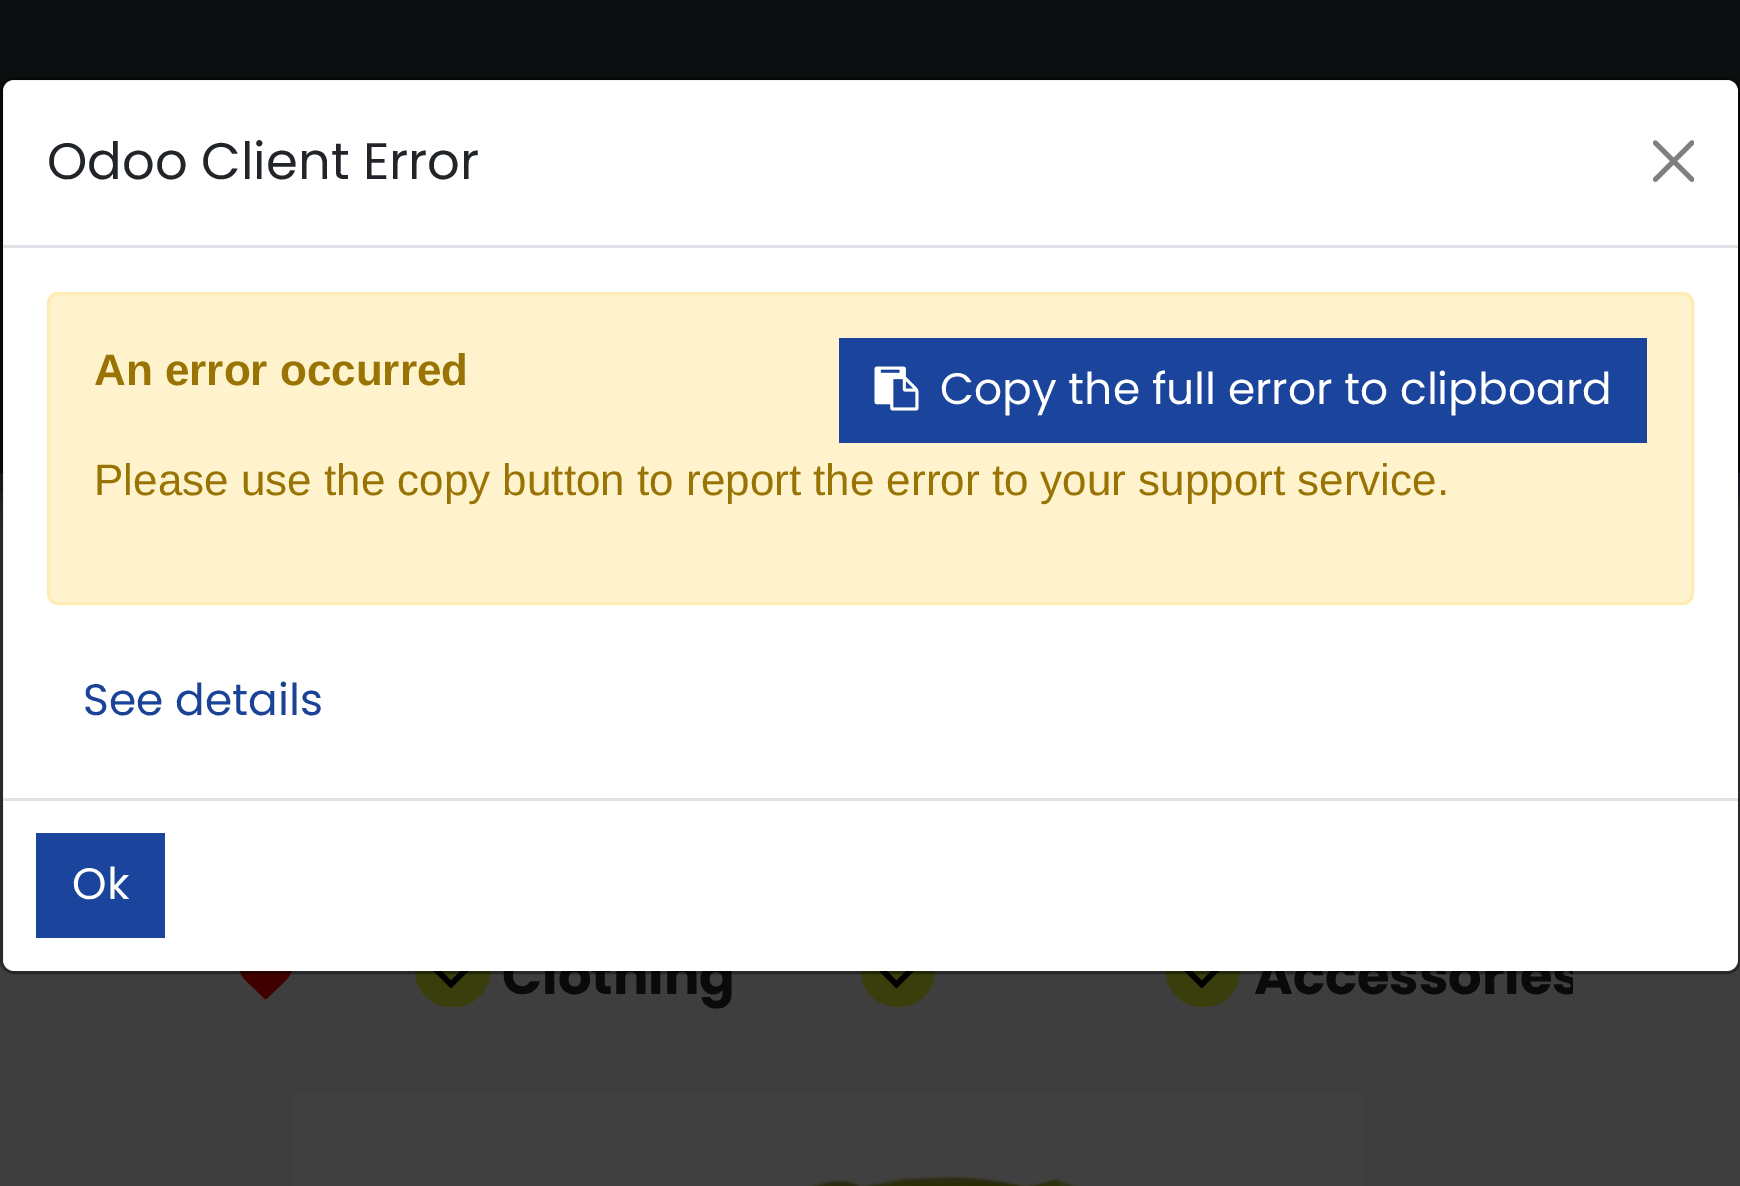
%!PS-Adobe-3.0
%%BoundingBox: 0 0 1740 1186
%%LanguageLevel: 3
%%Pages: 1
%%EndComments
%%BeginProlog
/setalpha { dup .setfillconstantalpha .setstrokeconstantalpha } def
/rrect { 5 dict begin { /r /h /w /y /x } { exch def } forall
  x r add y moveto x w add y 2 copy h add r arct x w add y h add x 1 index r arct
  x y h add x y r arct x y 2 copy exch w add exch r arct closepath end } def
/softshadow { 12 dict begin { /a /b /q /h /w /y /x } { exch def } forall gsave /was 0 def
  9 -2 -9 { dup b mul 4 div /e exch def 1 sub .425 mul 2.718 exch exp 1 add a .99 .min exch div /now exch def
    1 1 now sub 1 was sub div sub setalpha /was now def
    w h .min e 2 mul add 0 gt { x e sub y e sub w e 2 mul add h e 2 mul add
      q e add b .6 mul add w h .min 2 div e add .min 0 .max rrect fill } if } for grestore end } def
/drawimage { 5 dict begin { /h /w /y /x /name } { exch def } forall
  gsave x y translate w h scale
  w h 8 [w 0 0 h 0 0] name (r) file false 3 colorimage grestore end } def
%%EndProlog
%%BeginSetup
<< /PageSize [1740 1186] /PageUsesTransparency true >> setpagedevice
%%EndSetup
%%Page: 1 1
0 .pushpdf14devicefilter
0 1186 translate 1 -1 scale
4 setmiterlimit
0.243 setgray
0 0 1740 1186 rectfill
0.027 0.071 0.153 setrgbcolor
0 17 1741 473 0 16.5 1 softshadow
0.047 0.059 0.059 setrgbcolor
0 0 1740 473 rectfill
(images/3.raw) 239 971 53 29 drawimage
0.224 0.243 0.047 setrgbcolor
415 935 75 72 36 rrect fill
(images/4.raw) 433 971 36 17 drawimage
861 935 74 72 36 rrect fill
(images/5.raw) 879 971 35 17 drawimage
1166 935 74 72 36 rrect fill
(images/6.raw) 1184 971 36 17 drawimage
(images/7.raw) 294 1092 1070 94 drawimage
/Poppins-Bold [52.75 0 0 -52.75 0 0] selectfont
0.035 0.039 0.043 setrgbcolor
502 994 moveto (Clothing) show
gsave
171 899 1402 138 rectclip
1254 994 moveto (Accessories) show
grestore
0.2 setalpha
0 setgray
3 setlinewidth
1.5 78.5 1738 894 12.5 rrect stroke
1 setalpha
1 setgray
3 80 1735 891 11 rrect fill
0.2 setalpha
0 setgray
1.5 78.5 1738 894 12.5 rrect stroke
1 setalpha
1 0.953 0.804 setrgbcolor
48.5 293.5 1644 310 9.5 rrect gsave fill grestore
1 0.925 0.71 setrgbcolor
stroke
0.106 0.271 0.612 setrgbcolor
839 338 808 105 rectfill
/Poppins-Regular [44 0 0 -44 0 0] selectfont
1 setgray
940 404 moveto (Copy the full error to clipboard) show
(images/2.raw) 874 366 45 45 drawimage
/LiberationSans-Regular [44 0 0 -44 0 0] selectfont
0.6 0.455 0.016 setrgbcolor
94 495 moveto (Please use the copy button to report the error to your support service.) show
/LiberationSans-Bold [44 0 0 -44 0 0] selectfont
94 385 moveto (An error occurred) show
/Poppins-Regular [44 0 0 -44 0 0] selectfont
0.102 0.263 0.596 setrgbcolor
83 715 moveto (See details) show
(images/1.raw) 1653 140 41 42 drawimage
/Poppins-Regular [51.25 0 0 -51.25 0 0] selectfont
0.129 0.145 0.161 setrgbcolor
47 179 moveto (Odoo Client Error) show
0.106 0.271 0.612 setrgbcolor
36 833 129 105 rectfill
/Poppins-Regular [44 0 0 -44 0 0] selectfont
1 setgray
72 899 moveto (Ok) show
0.871 0.886 0.902 setrgbcolor
3 798 1735 3 rectfill
3 245 1735 3 rectfill
.poppdf14devicefilter showpage
%%EOF
